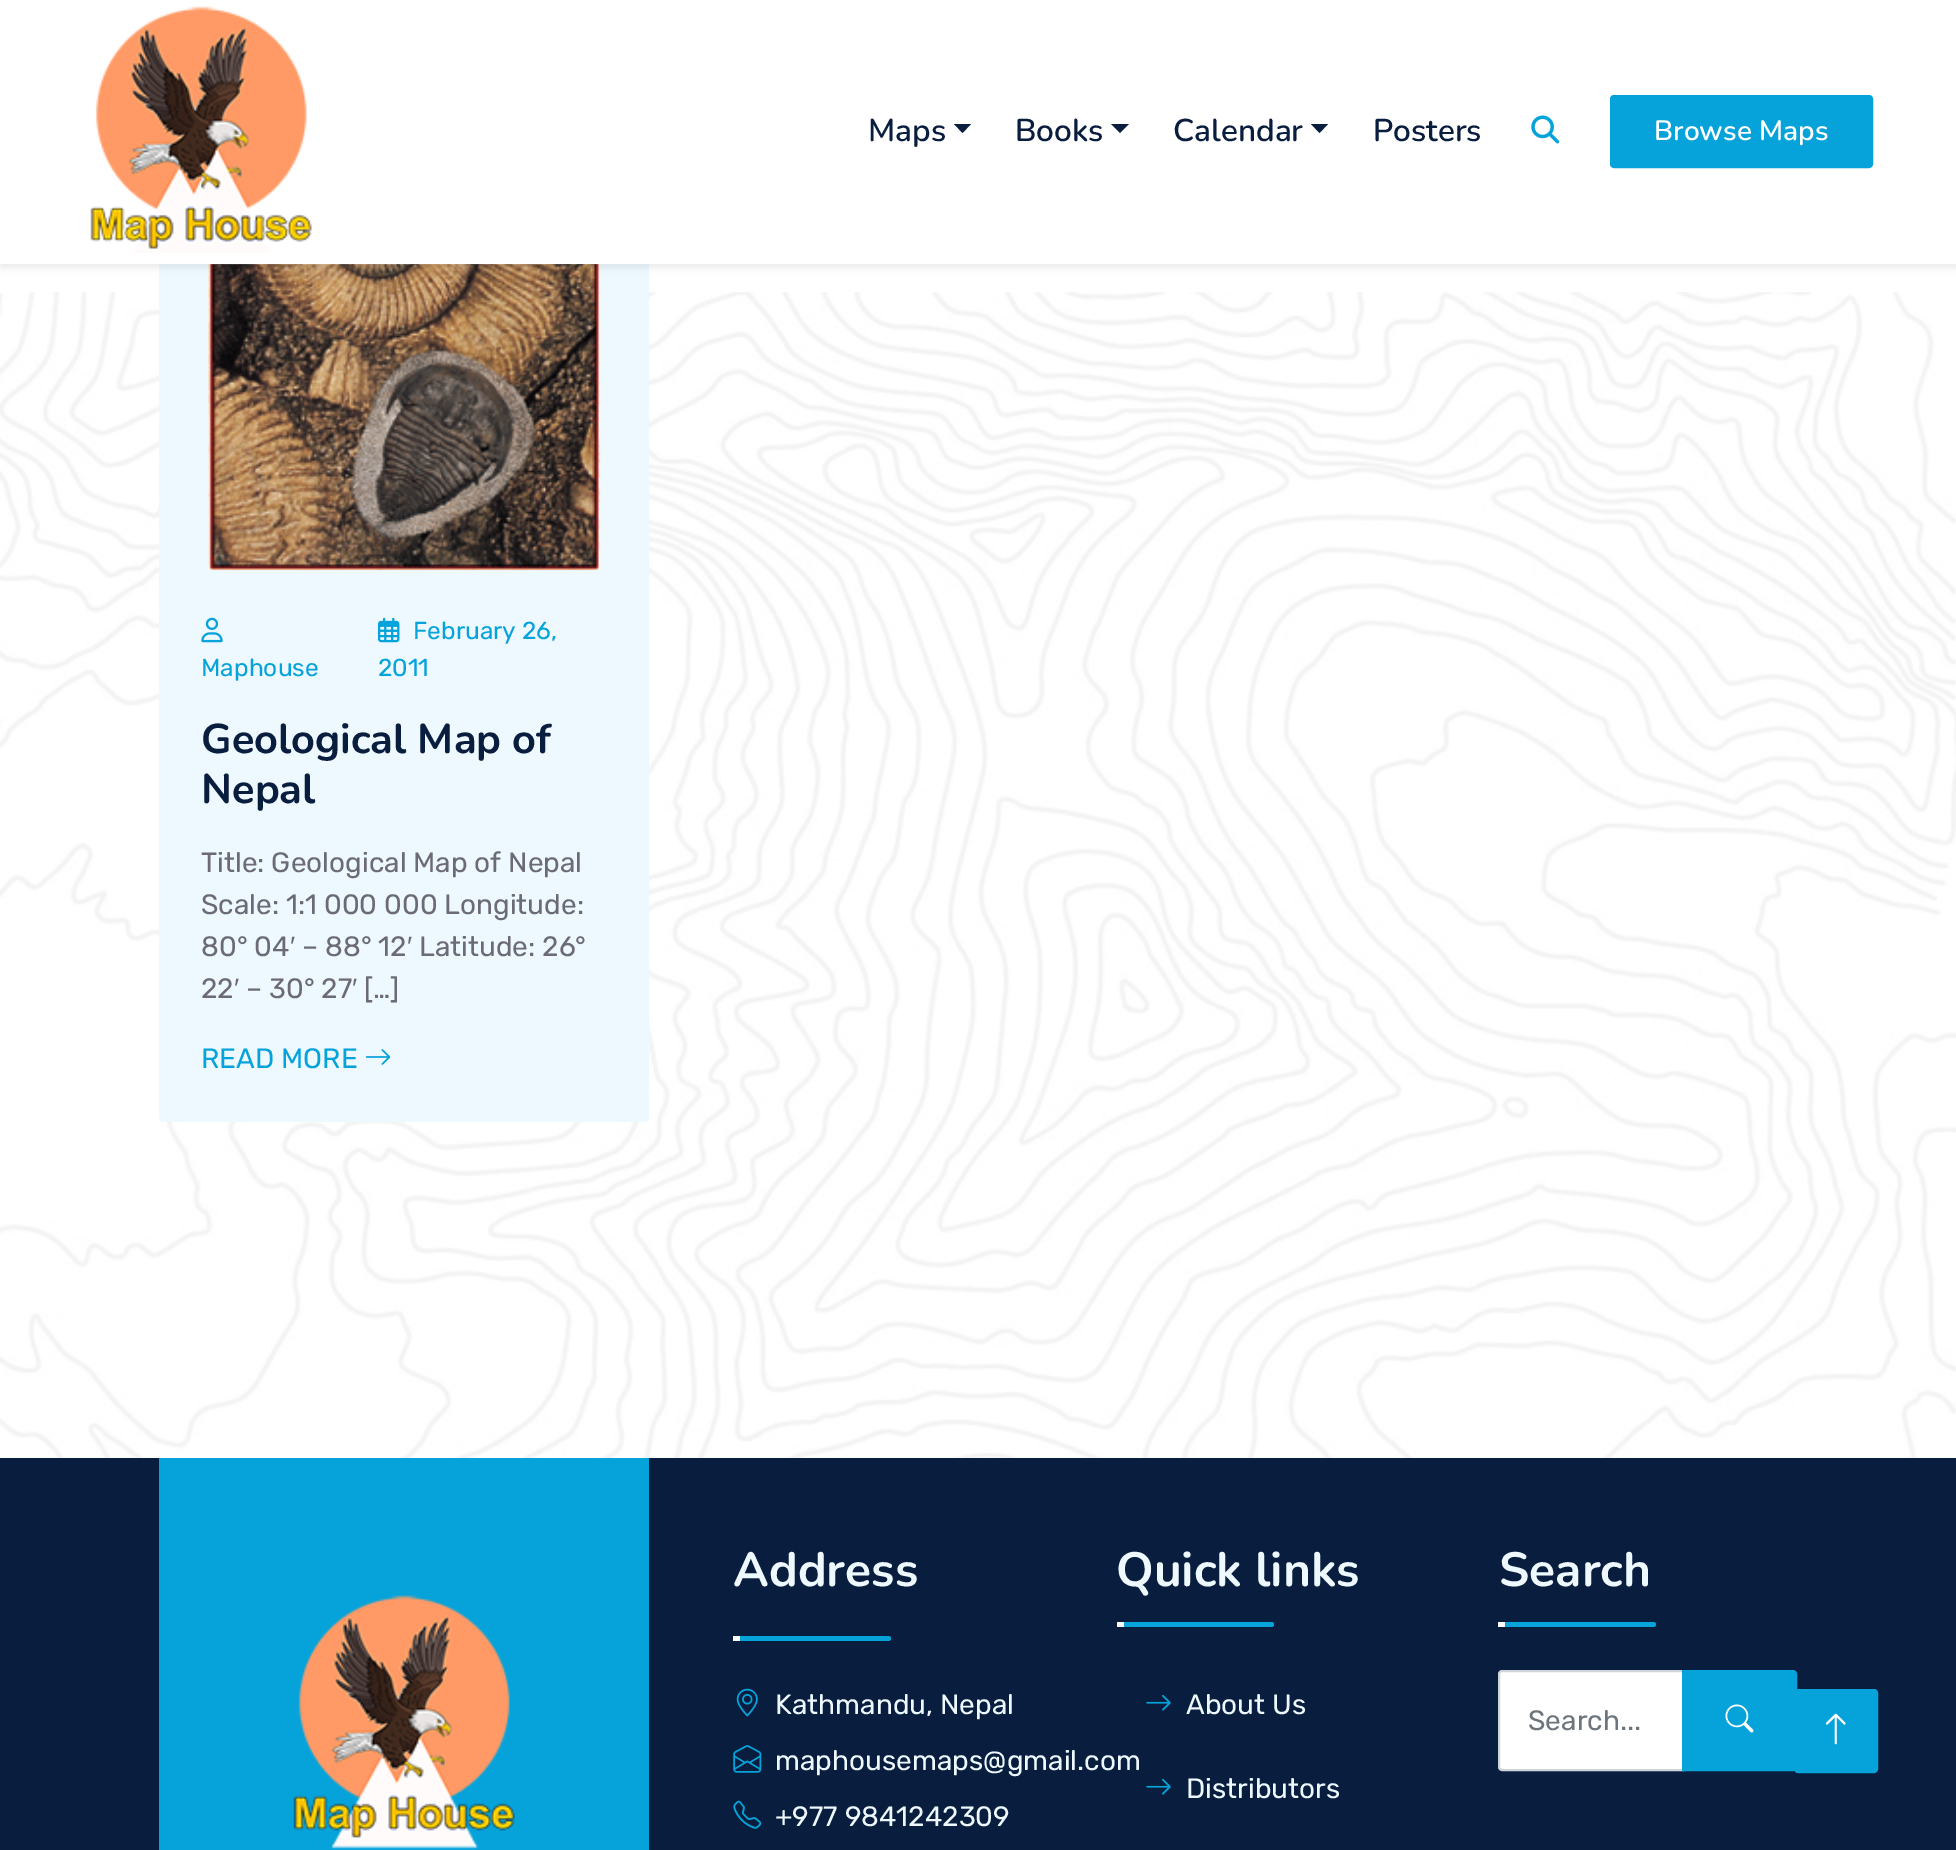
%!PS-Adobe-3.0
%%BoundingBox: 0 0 1956 1850
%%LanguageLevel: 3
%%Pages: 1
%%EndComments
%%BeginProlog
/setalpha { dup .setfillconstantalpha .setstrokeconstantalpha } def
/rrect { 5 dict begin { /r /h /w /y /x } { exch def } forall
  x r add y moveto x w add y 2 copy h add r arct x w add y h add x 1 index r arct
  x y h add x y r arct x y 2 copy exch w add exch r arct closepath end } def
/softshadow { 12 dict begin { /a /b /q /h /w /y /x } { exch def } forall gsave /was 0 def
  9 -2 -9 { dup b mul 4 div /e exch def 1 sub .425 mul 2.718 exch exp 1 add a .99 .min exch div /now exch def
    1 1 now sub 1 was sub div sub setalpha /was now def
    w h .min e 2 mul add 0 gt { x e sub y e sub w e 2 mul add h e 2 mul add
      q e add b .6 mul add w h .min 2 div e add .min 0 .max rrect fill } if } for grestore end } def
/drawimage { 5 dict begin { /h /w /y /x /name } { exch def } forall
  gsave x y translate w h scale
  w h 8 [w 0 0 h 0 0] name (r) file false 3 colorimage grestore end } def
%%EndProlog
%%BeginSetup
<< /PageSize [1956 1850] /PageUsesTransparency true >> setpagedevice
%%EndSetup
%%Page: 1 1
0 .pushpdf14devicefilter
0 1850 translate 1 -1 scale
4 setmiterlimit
1 setgray
0 0 1956 1850 rectfill
(images/1.raw) 0 292 1956 1166 drawimage
0.933 0.976 1 setrgbcolor
159 -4 490 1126 4 rrect fill
(images/4.raw) 208 264 393 307 drawimage
0 setgray
0 4 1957 264 0 3.5 0.07 softshadow
1 setgray
0 0 1956 264 rectfill
0.1 setalpha
159 264 490 1 rectfill
1 setalpha
(images/2.raw) 90 6 222 247 drawimage
0.035 0.118 0.243 setrgbcolor
newpath 954 124 moveto 971 124 lineto 962.5 133 lineto closepath fill
newpath 1111 124 moveto 1129 124 lineto 1120 133 lineto closepath fill
newpath 1311 124 moveto 1328 124 lineto 1319.5 133 lineto closepath fill
(images/3.raw) 1531 115 29 29 drawimage
0.024 0.639 0.855 setrgbcolor
1611 96 261 71 3 rrect gsave fill grestore
2 setlinewidth
stroke
(images/5.raw) 201 617 22 26 drawimage
(images/6.raw) 378 617 22 26 drawimage
(images/7.raw) 365 1049 26 16 drawimage
0.035 0.118 0.243 setrgbcolor
0 1458 1956 392 rectfill
0.024 0.639 0.855 setrgbcolor
159 1458 490 392 rectfill
(images/8.raw) 293 1595 222 254 drawimage
733 1636 158 5 2.5 rrect fill
1 setgray
733 1636 7 5 rectfill
(images/9.raw) 736 1688 22 29 drawimage
(images/10.raw) 733 1745 29 28 drawimage
(images/11.raw) 733 1800 29 29 drawimage
0.024 0.639 0.855 setrgbcolor
1117 1622 157 5 2.5 rrect fill
1 setgray
1117 1622 7 5 rectfill
(images/12.raw) 1146 1695 25 16 drawimage
(images/12.raw) 1146 1779 25 16 drawimage
0.024 0.639 0.855 setrgbcolor
1498 1622 158 5 2.5 rrect fill
1 setgray
1498 1622 7 5 rectfill
newpath 1502 1671 moveto 1683 1671 lineto 1683 1770 lineto 1502 1770 lineto 1500.5 1770 1499 1768.5 1499 1767 curveto 1499 1674 lineto 1499 1672.5 1500.5 1671 1502 1671 curveto closepath gsave fill grestore
0.808 0.831 0.855 setrgbcolor
stroke
0.024 0.639 0.855 setrgbcolor
newpath 1683 1671 moveto 1793 1671 lineto 1794.5 1671 1796 1672.5 1796 1674 curveto 1796 1767 lineto 1796 1768.5 1794.5 1770 1793 1770 curveto 1683 1770 lineto closepath gsave fill grestore
stroke
(images/13.raw) 1725 1704 29 29 drawimage
1795 1690 82 82 3 rrect gsave fill grestore
stroke
(images/14.raw) 1826 1713 20 32 drawimage
/Nunito-SemiBold [31.5 0 0 -31.5 0 0] selectfont
0.035 0.118 0.243 setrgbcolor
868 141 moveto (Maps) show
1015 141 moveto (Books) show
1173 141 moveto (Calendar) show
1373 141 moveto (Posters) show
/Nunito-SemiBold [28 0 0 -28 0 0] selectfont
1 setgray
1654 140 moveto (Browse Maps) show
/Rubik-Regular [24.5 0 0 -24.5 0 0] selectfont
0.024 0.639 0.855 setrgbcolor
201 676 moveto (Maphouse) show
413 639 moveto (February 26,) show
378 676 moveto (2011) show
/Nunito-Bold [41.5 0 0 -41.5 0 0] selectfont
0.035 0.118 0.243 setrgbcolor
201 753 moveto (Geological Map of) show
201 803 moveto (Nepal) show
/Rubik-Regular [28 0 0 -28 0 0] selectfont
0.42 0.416 0.459 setrgbcolor
201 872 moveto (Title: Geological Map of Nepal) show
201 914 moveto (Scale: 1:1 000 000 Longitude:) show
201 956 moveto (80° 04) show
/LiberationSans-Regular [28 0 0 -28 0 0] selectfont
290 956 moveto (′) show
/Rubik-Regular [28 0 0 -28 0 0] selectfont
302 956 moveto (– 88° 12) show
/LiberationSans-Regular [28 0 0 -28 0 0] selectfont
407 956 moveto (′) show
/Rubik-Regular [28 0 0 -28 0 0] selectfont
419 956 moveto (Latitude: 26°) show
201 998 moveto (22) show
/LiberationSans-Regular [28 0 0 -28 0 0] selectfont
234 998 moveto (′) show
/Rubik-Regular [28 0 0 -28 0 0] selectfont
246 998 moveto (– 30° 27) show
/LiberationSans-Regular [28 0 0 -28 0 0] selectfont
352 998 moveto (′) show
/Rubik-Regular [28 0 0 -28 0 0] selectfont
364 998 moveto ([…]) show
0.024 0.639 0.855 setrgbcolor
201 1068 moveto (READ MORE) show
/Nunito-Bold [48 0 0 -48 0 0] selectfont
0.933 0.976 1 setrgbcolor
733 1586 moveto (Address) show
/Rubik-Regular [28 0 0 -28 0 0] selectfont
775 1714 moveto (Kathmandu, Nepal) show
775 1770 moveto (maphousemaps@gmail.com) show
775 1826 moveto (+977 9841242309) show
/Nunito-Bold [48 0 0 -48 0 0] selectfont
1116 1586 moveto (Quick links) show
/Rubik-Regular [28 0 0 -28 0 0] selectfont
1186 1714 moveto (About Us) show
1186 1798 moveto (Distributors) show
/Nunito-Bold [48 0 0 -48 0 0] selectfont
1499 1586 moveto (Search) show
/Rubik-Regular [28 0 0 -28 0 0] selectfont
0.424 0.459 0.49 setrgbcolor
1528 1730 moveto (Search...) show
.poppdf14devicefilter showpage
%%EOF
